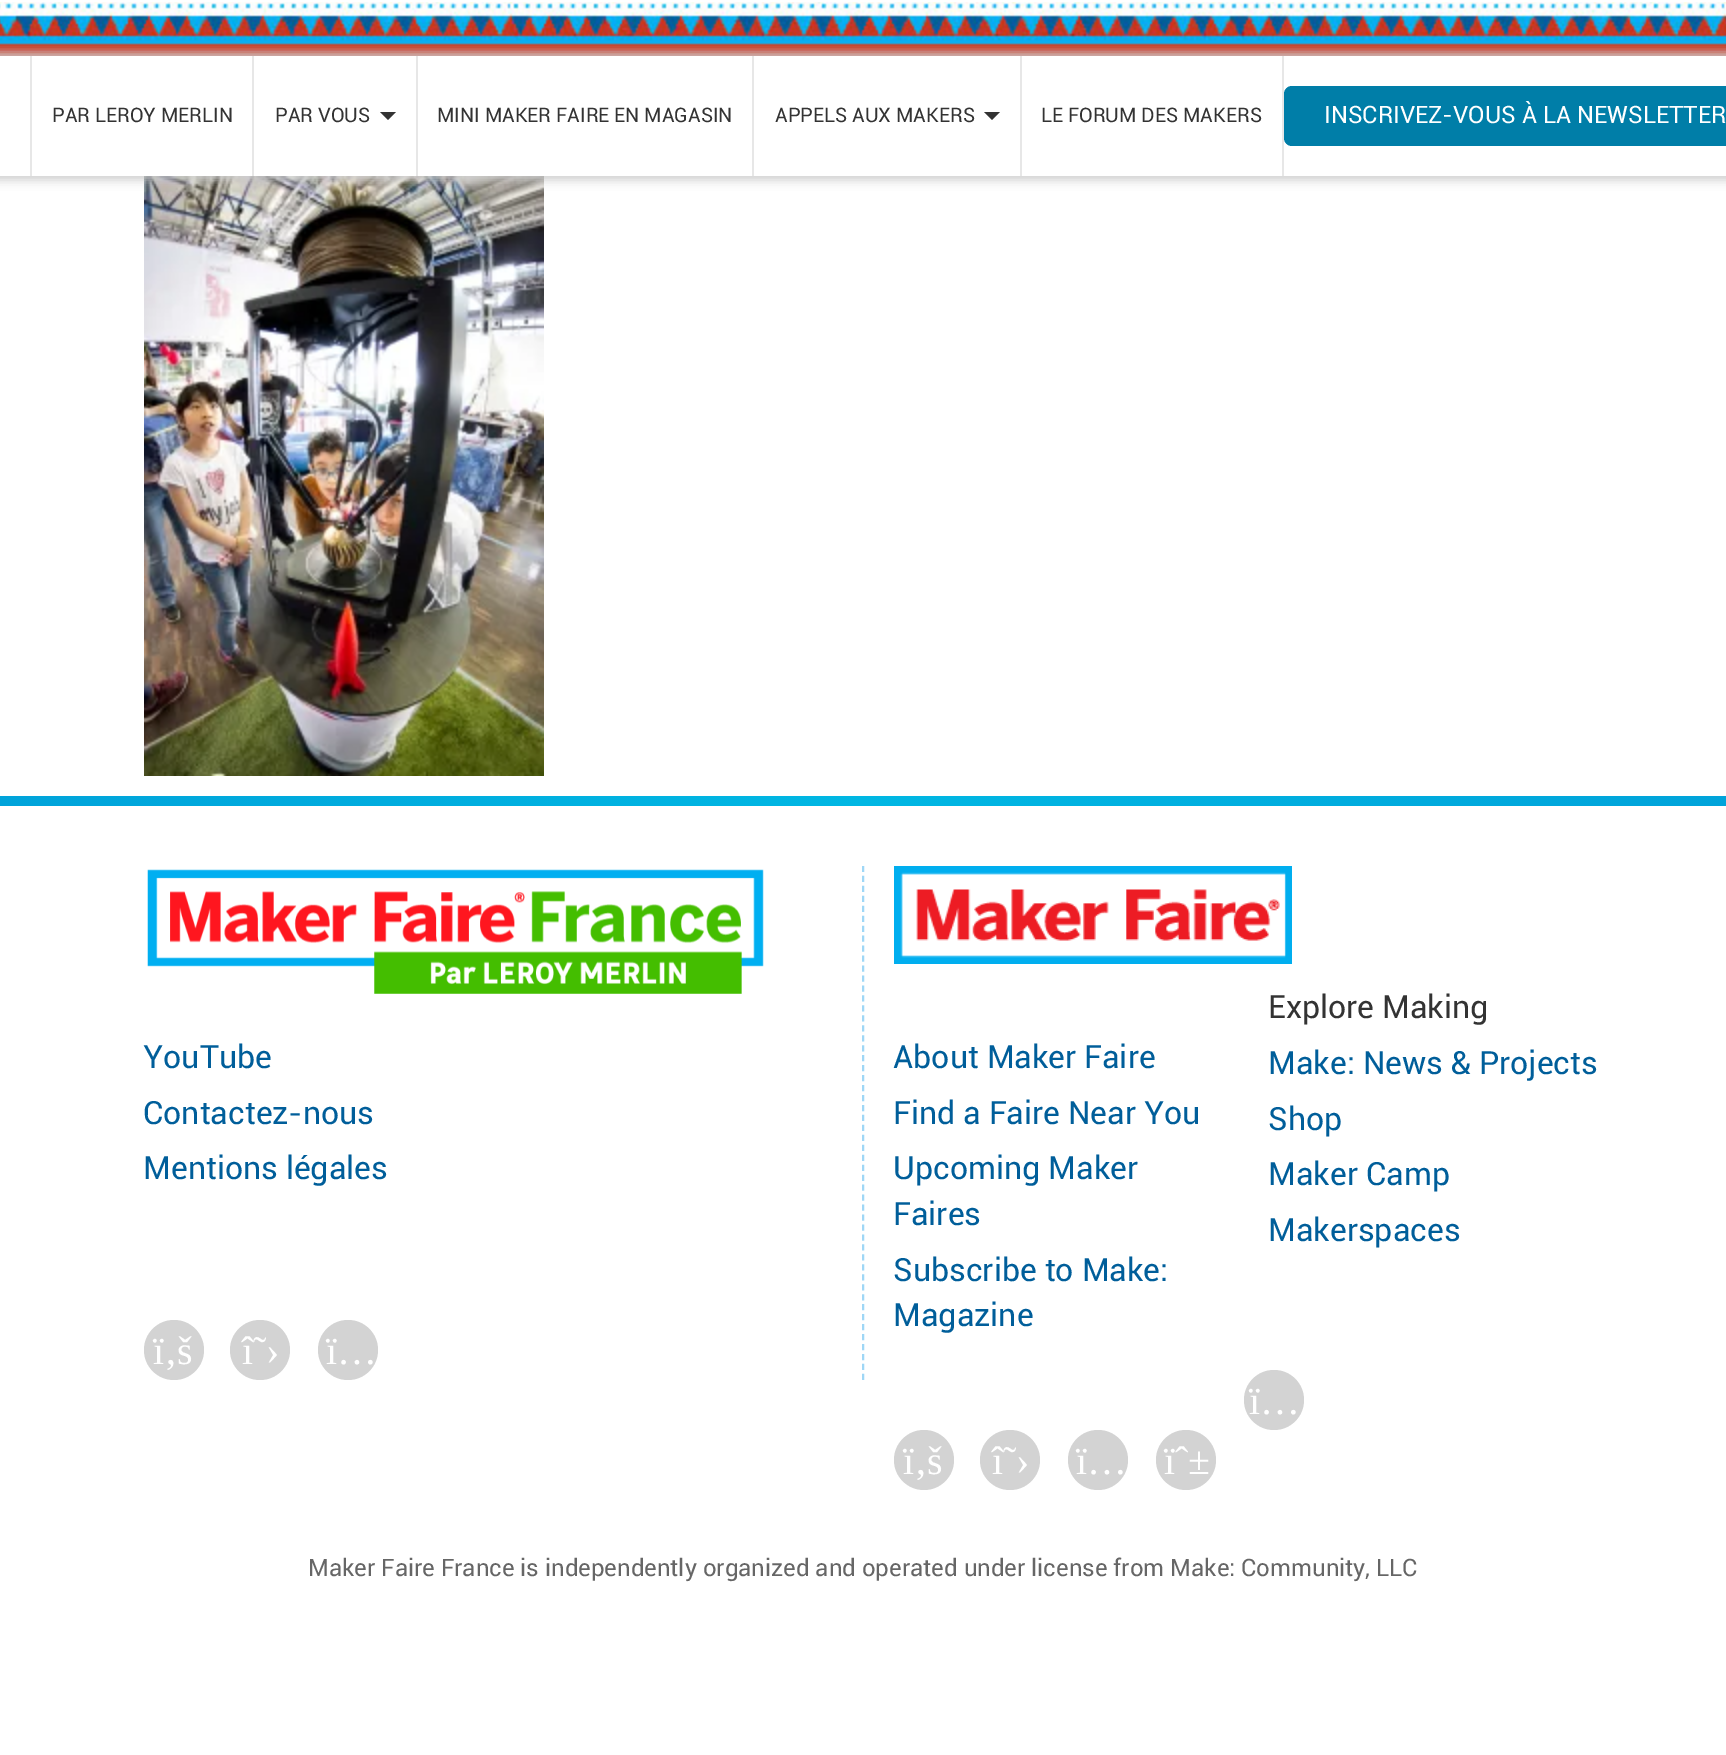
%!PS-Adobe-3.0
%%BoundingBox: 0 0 1726 1755
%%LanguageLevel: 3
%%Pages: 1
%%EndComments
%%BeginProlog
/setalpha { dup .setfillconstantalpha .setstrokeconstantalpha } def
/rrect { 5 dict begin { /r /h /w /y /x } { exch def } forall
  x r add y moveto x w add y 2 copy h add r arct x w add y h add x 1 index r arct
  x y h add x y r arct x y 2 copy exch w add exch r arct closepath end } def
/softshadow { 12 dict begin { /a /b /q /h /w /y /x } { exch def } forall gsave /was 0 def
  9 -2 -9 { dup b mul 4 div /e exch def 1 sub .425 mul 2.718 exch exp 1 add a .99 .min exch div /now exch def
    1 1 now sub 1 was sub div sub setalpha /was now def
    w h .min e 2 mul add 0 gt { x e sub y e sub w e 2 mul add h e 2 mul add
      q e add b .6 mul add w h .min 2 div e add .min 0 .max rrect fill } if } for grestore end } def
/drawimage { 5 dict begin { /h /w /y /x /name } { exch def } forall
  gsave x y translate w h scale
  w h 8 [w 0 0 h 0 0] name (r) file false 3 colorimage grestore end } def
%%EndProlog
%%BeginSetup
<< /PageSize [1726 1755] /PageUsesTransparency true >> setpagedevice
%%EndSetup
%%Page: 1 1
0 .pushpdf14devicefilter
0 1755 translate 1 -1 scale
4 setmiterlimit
1 setgray
0 0 1726 1755 rectfill
(images/1.raw) 0 2 1726 54 drawimage
(images/2.raw) 144 176 400 600 drawimage
gsave
newpath 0 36 moveto 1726 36 lineto 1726 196 lineto 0 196 lineto closepath 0 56 moveto 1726 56 lineto 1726 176 lineto 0 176 lineto closepath eoclip newpath
0.8 setgray
-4 52 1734 128 0 5 1 softshadow
grestore
0.906 setgray
252 56 2 120 rectfill
30 56 2 120 rectfill
416 56 2 120 rectfill
0.2 setgray
newpath 380 112 moveto 396 112 lineto 388 120 lineto closepath fill
0.906 setgray
752 56 2 120 rectfill
1020 56 2 120 rectfill
0.2 setgray
newpath 984 112 moveto 1000 112 lineto 992 120 lineto closepath fill
0.906 setgray
1282 56 2 120 rectfill
0 0.494 0.659 setrgbcolor
1284 86 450 60 8 rrect fill
(images/3.raw) 0 796 1726 10 drawimage
0.624 0.843 0.965 setrgbcolor
2 setlinewidth
[6 3.96] 0 setdash
newpath 863 866 moveto 863 1380 lineto stroke
(images/4.raw) 147 869 617 125 drawimage
0.827 setgray
newpath 174 1350 30 0 360 arc closepath fill
newpath 260 1350 30 0 360 arc closepath fill
newpath 348 1350 30 0 360 arc closepath fill
(images/5.raw) 894 866 398 98 drawimage
newpath 1274 1400 30 0 360 arc closepath fill
newpath 924 1460 30 0 360 arc closepath fill
newpath 1010 1460 30 0 360 arc closepath fill
newpath 1098 1460 30 0 360 arc closepath fill
newpath 1186 1460 30 0 360 arc closepath fill
/Roboto-Regular [20 0 0 -20 0 0] selectfont
0.2 setgray
52 122 moveto (PAR LEROY MERLIN) show
275 122 moveto (PAR VOUS) show
437 122 moveto (MINI MAKER FAIRE EN MAGASIN) show
775 122 moveto (APPELS AUX MAKERS) show
1041 122 moveto (LE FORUM DES MAKERS) show
/Roboto-Regular [24 0 0 -24 0 0] selectfont
1 setgray
1324 123 moveto (INSCRIVEZ-VOUS À LA NEWSLETTER) show
/Roboto-Regular [32 0 0 -32 0 0] selectfont
0 0.369 0.604 setrgbcolor
143 1068 moveto (YouTube) show
143 1124 moveto (Contactez-nous) show
143 1179 moveto (Mentions légales) show
/LiberationSerif-Regular [40 0 0 -40 0 0] selectfont
1 setgray
153 1364 moveto (ï‚š) show
242 1364 moveto (î˜›) show
326 1364 moveto (ï…) show
/Roboto-Regular [32 0 0 -32 0 0] selectfont
0 0.369 0.604 setrgbcolor
893 1068 moveto (About Maker Faire) show
893 1124 moveto (Find a Faire Near You) show
893 1179 moveto (Upcoming Maker) show
893 1225 moveto (Faires) show
893 1281 moveto (Subscribe to Make:) show
893 1326 moveto (Magazine) show
0.2 setgray
1268 1018 moveto (Explore Making) show
0 0.369 0.604 setrgbcolor
1268 1074 moveto (Make: News & Projects) show
1268 1130 moveto (Shop) show
1268 1185 moveto (Maker Camp) show
1268 1241 moveto (Makerspaces) show
/LiberationSerif-Regular [40 0 0 -40 0 0] selectfont
1 setgray
1249 1414 moveto (ï…) show
903 1474 moveto (ï‚š) show
992 1474 moveto (î˜›) show
1076 1474 moveto (ï…) show
1164 1474 moveto (ïˆ±) show
/Roboto-Regular [24 0 0 -24 0 0] selectfont
0.4 setgray
308 1576 moveto (Maker Faire France is independently organized and operated under license from Make: Community, LLC) show
.poppdf14devicefilter showpage
%%EOF
